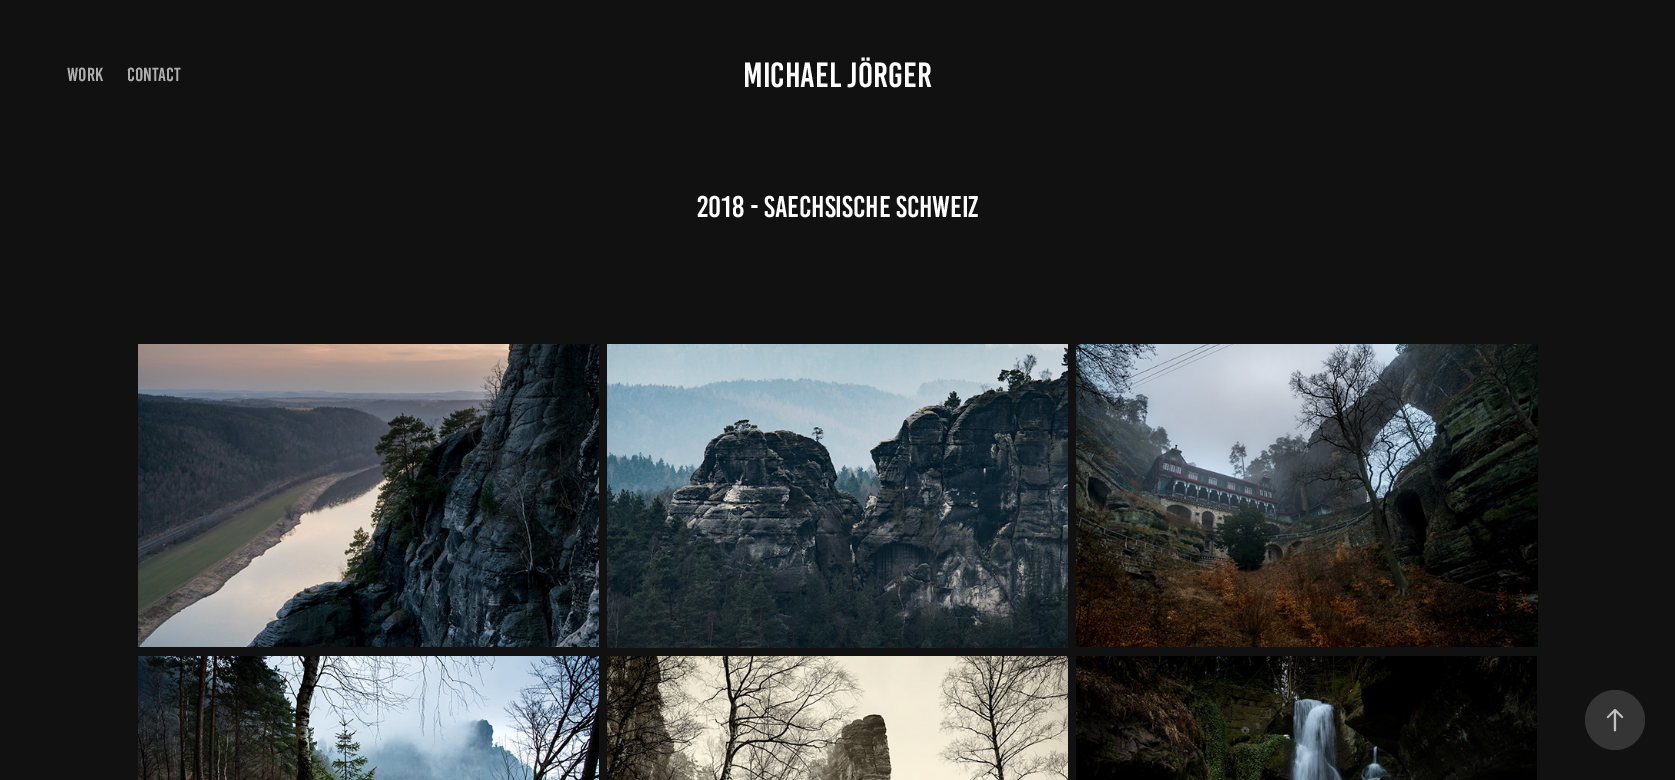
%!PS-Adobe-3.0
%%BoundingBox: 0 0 1675 780
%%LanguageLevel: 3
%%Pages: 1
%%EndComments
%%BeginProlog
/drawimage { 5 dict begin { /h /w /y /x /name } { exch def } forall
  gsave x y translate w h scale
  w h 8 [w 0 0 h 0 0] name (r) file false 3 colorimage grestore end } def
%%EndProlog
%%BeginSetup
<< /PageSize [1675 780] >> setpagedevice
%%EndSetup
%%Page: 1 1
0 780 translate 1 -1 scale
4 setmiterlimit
0.067 setgray
0 0 1675 780 rectfill
(images/1.raw) 138 344 461 303 drawimage
(images/2.raw) 607 344 461 304 drawimage
(images/3.raw) 1076 344 462 303 drawimage
(images/4.raw) 138 656 461 124 drawimage
(images/5.raw) 607 656 461 124 drawimage
(images/6.raw) 1076 656 461 124 drawimage
0.208 setgray
newpath 1615 720 30 0 360 arc closepath fill
(images/7.raw) 1606 709 18 23 drawimage
/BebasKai-Regular [19 0 0 -19 0 0] selectfont
0.682 setgray
67 81 moveto (WORK) show
127 81 moveto (CONTACT) show
/BebasKai-Regular [35 0 0 -35 0 0] selectfont
1 setgray
743 87 moveto (MICHAEL JÖRGER) show
/BebasKai-Regular [30 0 0 -30 0 0] selectfont
697 217 moveto (2018 - Saechsische Schweiz) show
showpage
%%EOF
